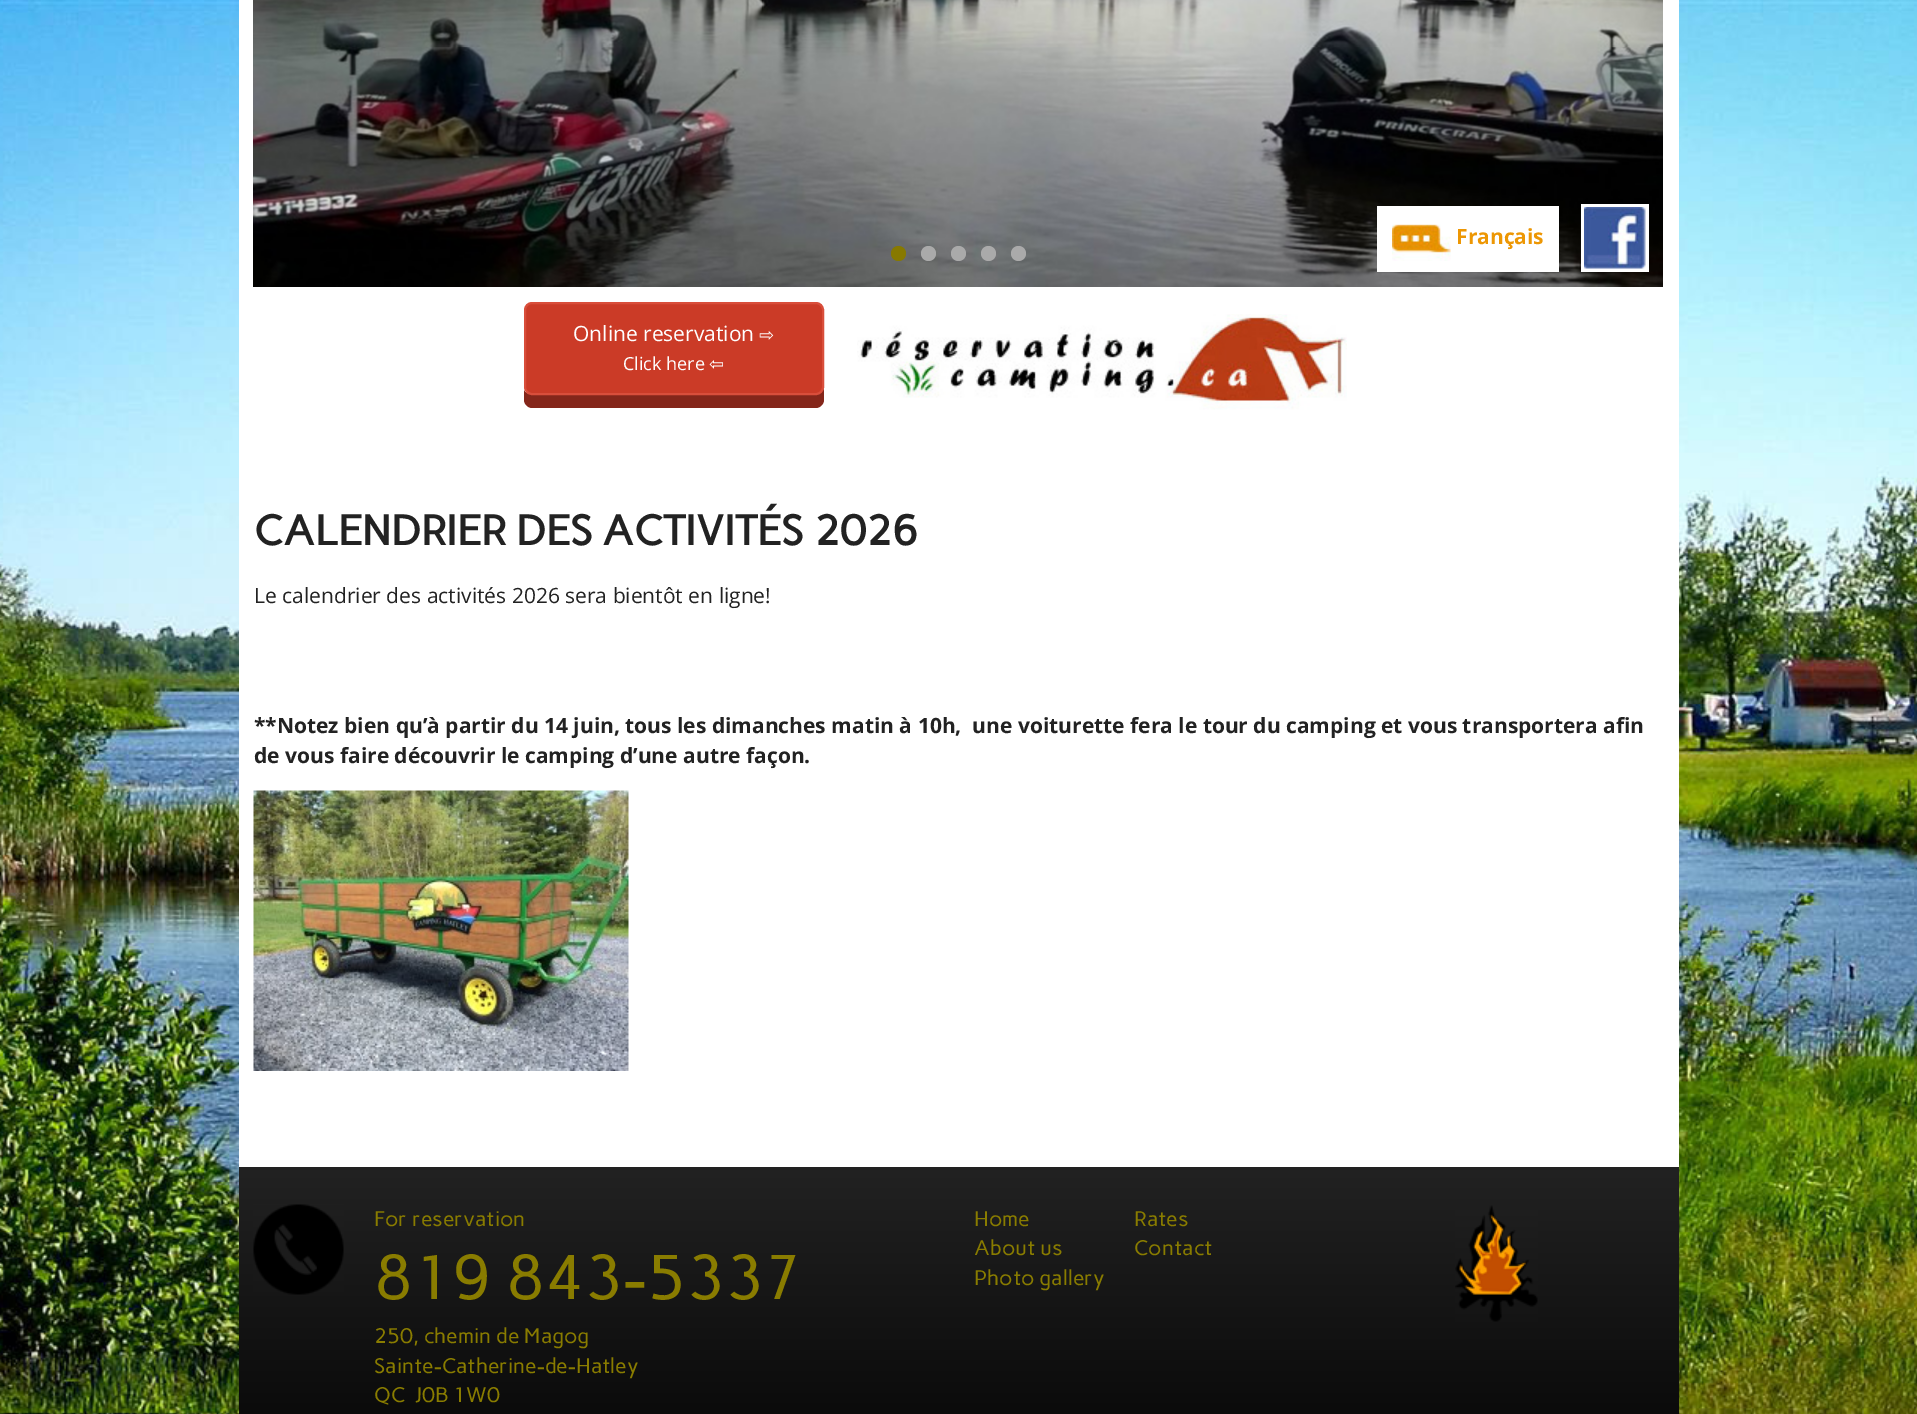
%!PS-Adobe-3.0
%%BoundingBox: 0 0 1917 1414
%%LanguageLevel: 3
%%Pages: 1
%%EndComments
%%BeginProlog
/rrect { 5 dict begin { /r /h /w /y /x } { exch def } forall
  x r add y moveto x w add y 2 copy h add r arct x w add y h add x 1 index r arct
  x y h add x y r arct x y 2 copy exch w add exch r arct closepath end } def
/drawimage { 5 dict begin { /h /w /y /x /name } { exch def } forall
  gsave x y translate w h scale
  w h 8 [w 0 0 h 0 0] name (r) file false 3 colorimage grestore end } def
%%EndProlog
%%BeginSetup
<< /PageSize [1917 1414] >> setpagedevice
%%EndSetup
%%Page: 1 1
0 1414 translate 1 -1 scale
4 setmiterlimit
1 setgray
0 0 1917 1414 rectfill
(images/1.raw) 0 0 1917 1414 drawimage
239 0 1440 1167 rectfill
(images/2.raw) 253 0 1410 287 drawimage
0.529 0.475 0 setrgbcolor
newpath 898.5 253.5 7.5 0 360 arc closepath fill
0.667 setgray
newpath 928.5 253.5 7.5 0 360 arc closepath fill
newpath 958.5 253.5 7.5 0 360 arc closepath fill
newpath 988.5 253.5 7.5 0 360 arc closepath fill
newpath 1018.5 253.5 7.5 0 360 arc closepath fill
1 setgray
1377 206 182 66 rectfill
(images/3.raw) 1392 224 59 37 drawimage
1581 204 68 68 rectfill
(images/4.raw) 1584 207 62 62 drawimage
0.518 0.149 0.102 setrgbcolor
newpath 524 390 moveto 524 400 lineto 524 404 528 408 532 408 curveto 816 408 lineto 820 408 824 404 824 400 curveto 824 323 lineto 824 320 lineto 824 387 lineto 824 391 820 394 816 394 curveto 531 394 lineto 528 394 525 393 524 390 curveto closepath fill
0.796 0.231 0.153 setrgbcolor
525 303 298 91 7 rrect gsave fill grestore
0.851 0.306 0.231 setrgbcolor
2 setlinewidth
stroke
(images/5.raw) 857 314 490 96 drawimage
(images/6.raw) 253 790 376 281 drawimage
gsave newpath 239 1167 moveto 1679 1167 lineto 1679 1414 lineto 239 1414 lineto closepath clip newpath
<< /ShadingType 2 /ColorSpace /DeviceRGB /Coords [959 1167 959 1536] /Extend [true true] /Function << /FunctionType 2 /Domain [0 1] /C0 [0.133 0.133 0.133] /C1 [0 0 0] /N 1 >> >> shfill grestore
(images/7.raw) 253 1204 91 91 drawimage
(images/8.raw) 1455 1205 83 117 drawimage
/OpenSans-Bold [21 0 0 -21 0 0] selectfont
0.929 0.592 0.016 setrgbcolor
1456 244 moveto (Français) show
/OpenSans-Regular [21 0 0 -21 0 0] selectfont
1 setgray
573 341 moveto (Online reservation) show
/DejaVuSans-Regular [18 0 0 -18 0 0] selectfont
759 341 moveto (⇨) show
/OpenSans-Regular [18 0 0 -18 0 0] selectfont
623 370 moveto (Click here) show
/DejaVuSans-Regular [18 0 0 -18 0 0] selectfont
709 370 moveto (⇦) show
/Carme-Bold [42 0 0 -42 0 0] selectfont
0.133 setgray
254 545 moveto (CALENDRIER DES ACTIVITÉS 2026) show
/OpenSans-Regular [21 0 0 -21 0 0] selectfont
254 603 moveto (Le calendrier des activités 2026 sera bientôt en ligne!) show
/OpenSans-Bold [21 0 0 -21 0 0] selectfont
254 733 moveto (**Notez bien qu’à partir du 14 juin, tous les dimanches matin à 10h,  une voiturette fera le tour du camping et vous transportera afin) show
254 763 moveto (de vous faire découvrir le camping d’une autre façon.) show
/Carme-Regular [21 0 0 -21 0 0] selectfont
0.537 0.486 0 setrgbcolor
374 1226 moveto (For reservation) show
/Carme-Regular [63 0 0 -63 0 0] selectfont
374 1299 moveto (819 843-5337) show
/Carme-Regular [21 0 0 -21 0 0] selectfont
374 1343 moveto (250, chemin de Magog) show
374 1373 moveto (Sainte-Catherine-de-Hatley) show
374 1402 moveto (QC  J0B 1W0) show
974 1226 moveto (Home) show
974 1255 moveto (About us) show
974 1285 moveto (Photo gallery) show
1134 1226 moveto (Rates) show
1134 1255 moveto (Contact) show
showpage
%%EOF
